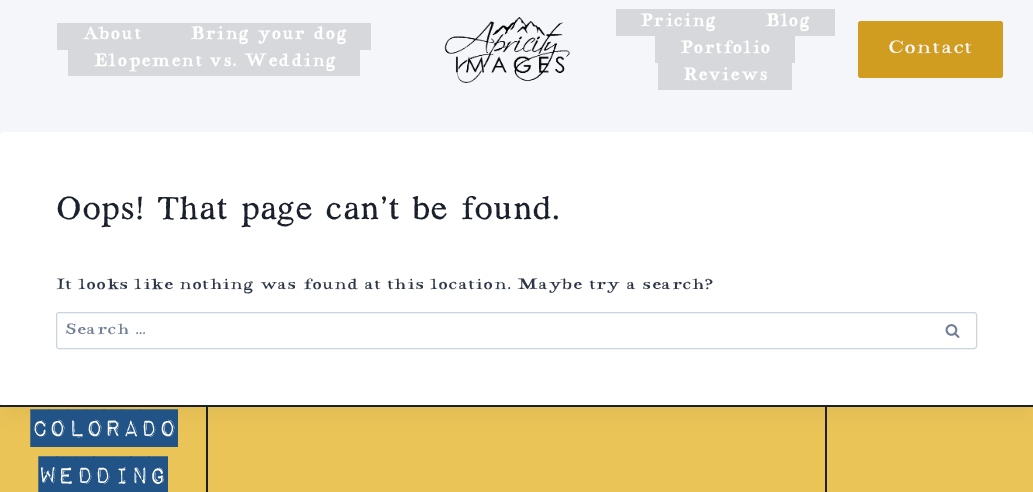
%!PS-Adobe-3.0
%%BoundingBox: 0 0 1033 492
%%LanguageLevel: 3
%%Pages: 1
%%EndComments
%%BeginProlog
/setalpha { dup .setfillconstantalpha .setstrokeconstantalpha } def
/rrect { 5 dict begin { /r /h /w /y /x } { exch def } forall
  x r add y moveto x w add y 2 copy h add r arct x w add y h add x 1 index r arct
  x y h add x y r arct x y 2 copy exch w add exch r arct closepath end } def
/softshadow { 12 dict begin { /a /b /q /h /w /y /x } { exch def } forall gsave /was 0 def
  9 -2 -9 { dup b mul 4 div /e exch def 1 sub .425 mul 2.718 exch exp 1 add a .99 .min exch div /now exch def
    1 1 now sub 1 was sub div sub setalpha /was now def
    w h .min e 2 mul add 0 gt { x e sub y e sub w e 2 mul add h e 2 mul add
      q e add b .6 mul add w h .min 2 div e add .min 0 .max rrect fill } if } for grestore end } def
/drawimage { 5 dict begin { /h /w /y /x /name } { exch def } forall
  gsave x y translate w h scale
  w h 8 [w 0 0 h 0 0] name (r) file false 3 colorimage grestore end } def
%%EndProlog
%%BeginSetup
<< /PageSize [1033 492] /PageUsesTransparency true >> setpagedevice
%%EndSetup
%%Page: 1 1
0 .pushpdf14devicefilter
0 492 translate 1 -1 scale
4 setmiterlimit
0.957 0.965 0.98 setrgbcolor
0 0 1033 492 rectfill
0.843 0.847 0.863 setrgbcolor
57 23 314 27 rectfill
68 50 292 26 rectfill
(images/1.raw) 444 17 126 67 drawimage
616 9 219 27 rectfill
655 36 140 27 rectfill
658 63 134 27 rectfill
0.82 0.616 0.129 setrgbcolor
858 21 145 57 3 rrect fill
0.918 0.769 0.337 setrgbcolor
0 407 1033 85 rectfill
0.102 0.125 0.173 setrgbcolor
0 405 1033 2 rectfill
0 setgray
10 157 1013 253 0 12.5 0.05 softshadow
1 setgray
0 132 1033 273 4 rrect fill
0.796 0.835 0.878 setrgbcolor
56.5 312.5 920 36 2.5 rrect stroke
(images/2.raw) 945 324 15 14 drawimage
1 setgray
31 414 145 31 rectfill
39 461 128 31 rectfill
0.102 0.125 0.173 setrgbcolor
206 407 2 85 rectfill
825 407 2 85 rectfill
/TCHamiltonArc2-Regular [18 0 0 -18 0 0] selectfont
1 setgray
82 39 moveto -0.05 0 (About) ashow
190 39 moveto -0.05 0 (Bring your dog) ashow
93 66 moveto -0.05 0 (Elopement vs. Wedding) ashow
640 26 moveto -0.12 0 (Pricing) ashow
765 26 moveto -0.12 0 (Blog) ashow
680 53 moveto -0.12 0 (Portfolio) ashow
683 80 moveto -0.12 0 (Reviews) ashow
/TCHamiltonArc-Regular [18 0 0 -18 0 0] selectfont
0.957 0.965 0.98 setrgbcolor
888 53 moveto -0.12 0 (Contact) ashow
/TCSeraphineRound-Regular [32 0 0 -32 0 0] selectfont
0.102 0.125 0.173 setrgbcolor
56 219 moveto -0.12 0 (Oops! That page can’t be found.) ashow
/TCHamiltonArc-Regular [15 0 0 -15 0 0] selectfont
0.176 0.216 0.282 setrgbcolor
56 289 moveto -0.12 0 (It looks like nothing was found at this location. Maybe try a search?) ashow
0.443 0.502 0.588 setrgbcolor
65 334 moveto -0.12 0 (Search …) ashow
/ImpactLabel-Regular [31 0 0 -31 0 0] selectfont
0.129 0.325 0.529 setrgbcolor
31 437 moveto -0.12 0 (Colorado) ashow
39 484 moveto -0.12 0 (Wedding) ashow
.poppdf14devicefilter showpage
%%EOF
